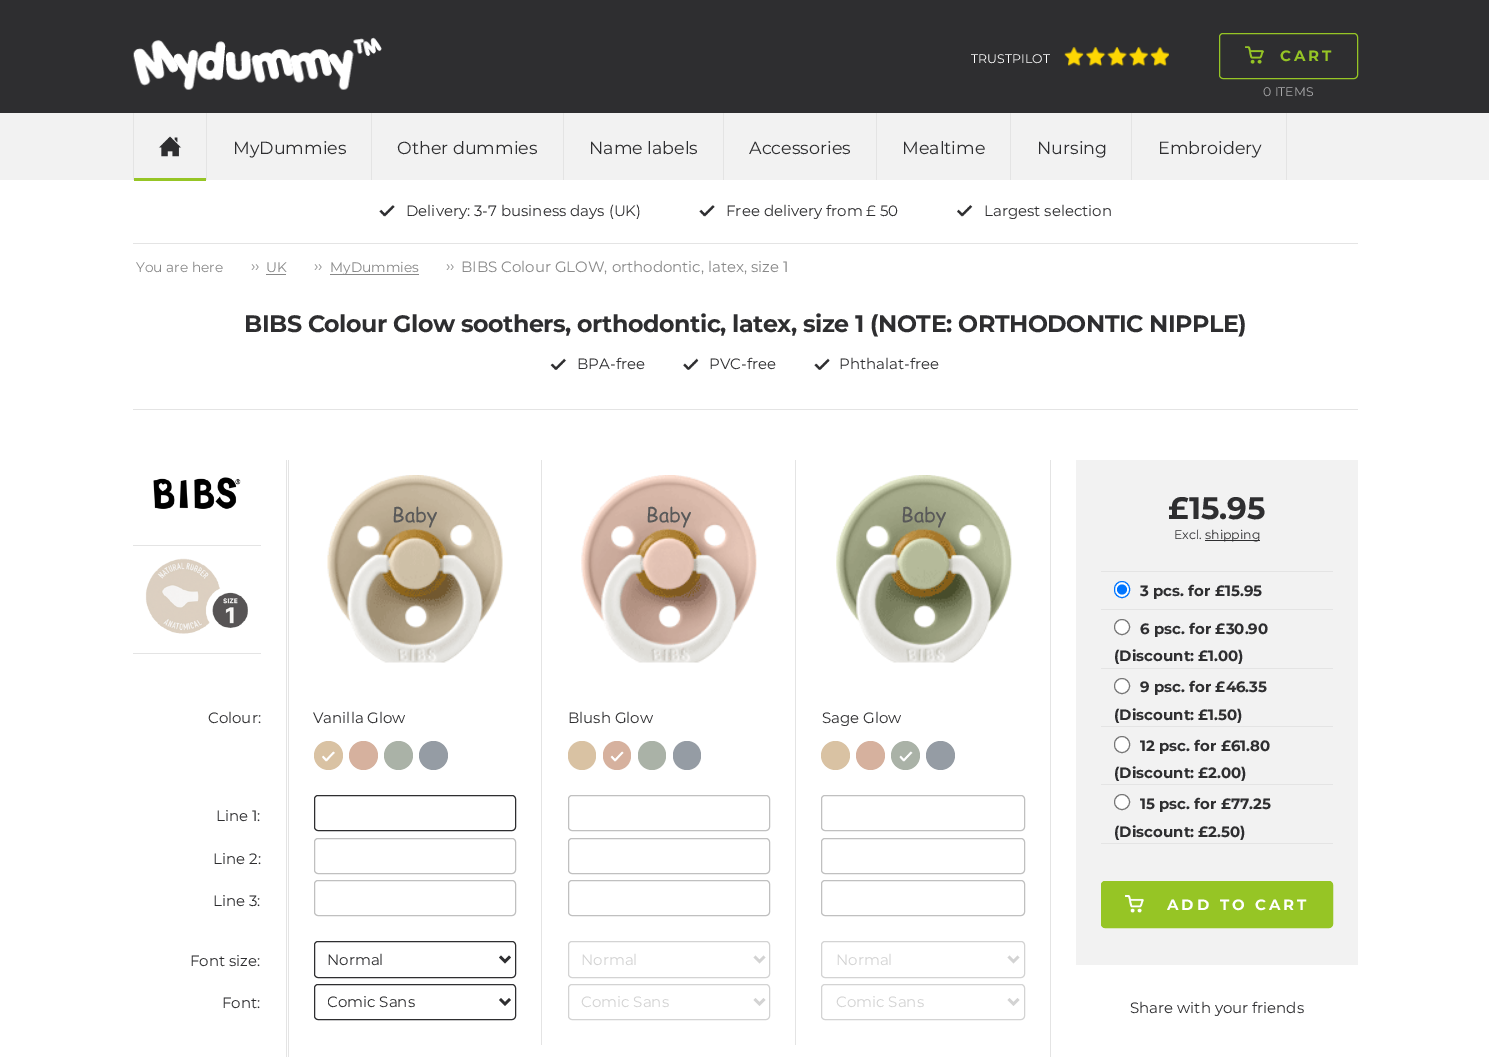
%!PS-Adobe-3.0
%%BoundingBox: 0 0 1489 1057
%%LanguageLevel: 3
%%Pages: 1
%%EndComments
%%BeginProlog
/rrect { 5 dict begin { /r /h /w /y /x } { exch def } forall
  x r add y moveto x w add y 2 copy h add r arct x w add y h add x 1 index r arct
  x y h add x y r arct x y 2 copy exch w add exch r arct closepath end } def
/drawimage { 5 dict begin { /h /w /y /x /name } { exch def } forall
  gsave x y translate w h scale
  w h 8 [w 0 0 h 0 0] name (r) file false 3 colorimage grestore end } def
%%EndProlog
%%BeginSetup
<< /PageSize [1489 1057] >> setpagedevice
%%EndSetup
%%Page: 1 1
0 1057 translate 1 -1 scale
4 setmiterlimit
1 setgray
0 0 1489 1057 rectfill
0.18 0.18 0.188 setrgbcolor
0 0 1489 113 rectfill
(images/1.raw) 133 37 249 53 drawimage
(images/2.raw) 1064 47 105 19 drawimage
0.588 0.773 0.145 setrgbcolor
1219.5 33.5 138 45 3.5 rrect stroke
(images/3.raw) 1245 46 19 18 drawimage
0.949 setgray
0 113 1489 67 rectfill
0.894 setgray
206 113 1 67 rectfill
133 113 1 67 rectfill
0.588 0.773 0.145 setrgbcolor
134 178 72 3 rectfill
(images/4.raw) 158 136 24 21 drawimage
0.894 setgray
371 113 1 67 rectfill
563 113 1 67 rectfill
723 113 1 67 rectfill
876 113 1 67 rectfill
1010 113 1 67 rectfill
1131 113 1 67 rectfill
1286 113 1 67 rectfill
(images/5.raw) 379 205 16 12 drawimage
(images/5.raw) 699 205 16 12 drawimage
(images/6.raw) 957 205 16 12 drawimage
133 243 1225 1 rectfill
0.533 setgray
266 274 20 1 rectfill
330 274 89 1 rectfill
0.894 setgray
133 409 1225 1 rectfill
(images/7.raw) 550 358 17 12 drawimage
(images/8.raw) 683 358 16 12 drawimage
(images/9.raw) 814 358 16 12 drawimage
133 545 128 1 rectfill
(images/10.raw) 153 477 88 32 drawimage
133 653 128 1 rectfill
(images/11.raw) 145 558 103 76 drawimage
1050 460 1 597 rectfill
286 460 1 597 rectfill
288 460 1 597 rectfill
(images/12.raw) 327 475 176 188 drawimage
0.851 0.761 0.639 setrgbcolor
newpath 328.5 755.5 14.5 0 360 arc closepath fill
(images/13.raw) 322 751 13 11 drawimage
0.839 0.694 0.62 setrgbcolor
newpath 363.5 755.5 14.5 0 360 arc closepath fill
0.667 0.698 0.655 setrgbcolor
newpath 398.5 755.5 14.5 0 360 arc closepath fill
0.584 0.612 0.643 setrgbcolor
newpath 433.5 755.5 14.5 0 360 arc closepath fill
0.18 0.18 0.188 setrgbcolor
314.5 795.5 201 35 3.5 rrect stroke
0.753 setgray
314.5 838.5 201 35 3.5 rrect stroke
314.5 880.5 201 35 3.5 rrect stroke
0.18 0.18 0.188 setrgbcolor
314.5 941.5 201 36 3.5 rrect stroke
2.5 setlinewidth
newpath 500 956.5 moveto 505 961.5 lineto 510 956.5 lineto stroke
1 setlinewidth
314.5 984.5 201 35 3.5 rrect stroke
2.5 setlinewidth
newpath 500 999 moveto 505 1004 lineto 510 999 lineto stroke
0.894 setgray
541 460 1 585 rectfill
(images/14.raw) 581 475 176 188 drawimage
0.851 0.761 0.639 setrgbcolor
568 741 28 29 14 rrect fill
0.839 0.694 0.62 setrgbcolor
603 741 28 29 14 rrect fill
(images/15.raw) 610 751 14 11 drawimage
0.667 0.698 0.655 setrgbcolor
638 741 28 29 14 rrect fill
0.584 0.612 0.643 setrgbcolor
673 741 28 29 14 rrect fill
0.753 setgray
1 setlinewidth
568.5 795.5 201 35 3.5 rrect stroke
568.5 838.5 201 35 3.5 rrect stroke
568.5 880.5 201 35 3.5 rrect stroke
0.827 setgray
568.5 941.5 201 36 3.5 rrect stroke
2.5 setlinewidth
newpath 754.5 956.5 moveto 759.5 961.5 lineto 764.5 956.5 lineto stroke
1 setlinewidth
568.5 984.5 201 35 3.5 rrect stroke
2.5 setlinewidth
newpath 754.5 999 moveto 759.5 1004 lineto 764.5 999 lineto stroke
0.894 setgray
795 460 1 585 rectfill
(images/16.raw) 836 475 176 188 drawimage
0.851 0.761 0.639 setrgbcolor
newpath 835.5 755.5 14.5 0 360 arc closepath fill
0.839 0.694 0.62 setrgbcolor
newpath 870.5 755.5 14.5 0 360 arc closepath fill
0.667 0.698 0.655 setrgbcolor
newpath 905.5 755.5 14.5 0 360 arc closepath fill
(images/17.raw) 899 751 14 11 drawimage
0.584 0.612 0.643 setrgbcolor
newpath 940.5 755.5 14.5 0 360 arc closepath fill
0.753 setgray
1 setlinewidth
821.5 795.5 203 35 3.5 rrect stroke
821.5 838.5 203 35 3.5 rrect stroke
821.5 880.5 203 35 3.5 rrect stroke
0.827 setgray
821.5 941.5 203 36 3.5 rrect stroke
2.5 setlinewidth
newpath 1008.5 956.5 moveto 1013.5 961.5 lineto 1018.5 956.5 lineto stroke
1 setlinewidth
821.5 984.5 203 35 3.5 rrect stroke
2.5 setlinewidth
newpath 1008.5 999 moveto 1013.5 1004 lineto 1018.5 999 lineto stroke
0.949 setgray
1076 460 282 505 rectfill
0.18 0.18 0.188 setrgbcolor
1205 540 55 1 rectfill
0.894 setgray
1101 571 232 1 rectfill
1101 609 232 1 rectfill
1 setgray
1114.5 581.5 15 16 7.5 rrect gsave fill grestore
0 0.459 1 setrgbcolor
1 setlinewidth
stroke
newpath 1122 589.5 5 0 360 arc closepath fill
0.894 setgray
1101 668 232 1 rectfill
1 setgray
newpath 1122 627 7.5 0 360 arc closepath gsave fill grestore
0.463 setgray
stroke
0.894 setgray
1101 726 232 1 rectfill
1 setgray
newpath 1122 686 7.5 0 360 arc closepath gsave fill grestore
0.463 setgray
stroke
0.894 setgray
1101 784 232 1 rectfill
1 setgray
1114.5 736.5 15 16 7.5 rrect gsave fill grestore
0.463 setgray
stroke
0.894 setgray
1101 843 232 1 rectfill
1 setgray
newpath 1122 802 7.5 0 360 arc closepath gsave fill grestore
0.463 setgray
stroke
0.588 0.773 0.145 setrgbcolor
1101.5 881.5 231 46 3.5 rrect gsave fill grestore
stroke
(images/18.raw) 1125 895 19 18 drawimage
/Montserrat-Regular [12.5 0 0 -12.5 0 0] selectfont
1 setgray
971 63 moveto (TRUSTPILOT) show
/Montserrat-Bold [15 0 0 -15 0 0] selectfont
0.588 0.773 0.145 setrgbcolor
1280 61 moveto 3 0 (CART) ashow
/Montserrat-Regular [12.5 0 0 -12.5 0 0] selectfont
0.671 0.671 0.675 setrgbcolor
1263 96 moveto (0 ITEMS) show
/Montserrat-Regular [17.5 0 0 -17.5 0 0] selectfont
0.18 0.18 0.188 setrgbcolor
233 154 moveto (MyDummies) show
397 154 moveto (Other dummies) show
589 154 moveto (Name labels) show
749 154 moveto (Accessories) show
902 154 moveto (Mealtime) show
1037 154 moveto (Nursing) show
1158 154 moveto (Embroidery) show
/Montserrat-Regular [15 0 0 -15 0 0] selectfont
406 216 moveto (Delivery: 3-7 business days \(UK\)) show
726 216 moveto (Free delivery from £ 50) show
984 216 moveto (Largest selection) show
/Montserrat-Regular [13.75 0 0 -13.75 0 0] selectfont
0.533 setgray
136 272 moveto (You are here) show
/Montserrat-Regular [15 0 0 -15 0 0] selectfont
251 271 moveto (››) show
/Montserrat-Regular [13.75 0 0 -13.75 0 0] selectfont
266 272 moveto (UK) show
/Montserrat-Regular [15 0 0 -15 0 0] selectfont
314 271 moveto (››) show
/Montserrat-Regular [13.75 0 0 -13.75 0 0] selectfont
330 272 moveto (MyDummies) show
/Montserrat-Regular [15 0 0 -15 0 0] selectfont
446 271 moveto (››) show
461 272 moveto (BIBS Colour GLOW, orthodontic, latex, size 1) show
/Montserrat-Bold [23.75 0 0 -23.75 0 0] selectfont
0.18 0.18 0.188 setrgbcolor
244 332 moveto -0.47 0 (BIBS Colour Glow soothers, orthodontic, latex, size 1 \(NOTE: ORTHODONTIC NIPPLE\)) ashow
/Montserrat-Regular [15 0 0 -15 0 0] selectfont
577 369 moveto (BPA-free) show
709 369 moveto (PVC-free) show
839 369 moveto (Phthalat-free) show
208 723 moveto (Colour:) show
216 821 moveto (Line 1:) show
213 864 moveto (Line 2:) show
213 906 moveto (Line 3:) show
190 966 moveto (Font size:) show
222 1008 moveto (Font:) show
/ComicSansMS-Regular [20 0 0 -20 0 0] selectfont
0.349 setgray
392 522 moveto (Baby) show
/Montserrat-Regular [15 0 0 -15 0 0] selectfont
0.18 0.18 0.188 setrgbcolor
313 723 moveto (Vanilla Glow) show
327 965 moveto (Normal) show
gsave
328 991 157 22 rectclip
327 1007 moveto (Comic Sans) show
grestore
/ComicSansMS-Regular [20 0 0 -20 0 0] selectfont
0.349 setgray
646 522 moveto (Baby) show
/Montserrat-Regular [15 0 0 -15 0 0] selectfont
0.18 0.18 0.188 setrgbcolor
568 723 moveto (Blush Glow) show
0.827 setgray
581 965 moveto (Normal) show
581 1007 moveto (Comic Sans) show
/ComicSansMS-Regular [20 0 0 -20 0 0] selectfont
0.349 setgray
901 522 moveto (Baby) show
/Montserrat-Regular [15 0 0 -15 0 0] selectfont
0.18 0.18 0.188 setrgbcolor
822 723 moveto (Sage Glow) show
0.827 setgray
836 965 moveto (Normal) show
836 1007 moveto (Comic Sans) show
/Montserrat-Bold [31 0 0 -31 0 0] selectfont
0.18 0.18 0.188 setrgbcolor
1168 519 moveto (£15.95) show
/Montserrat-Regular [12.5 0 0 -12.5 0 0] selectfont
1174 539 moveto (Excl.) show
1205 539 moveto (shipping) show
/Montserrat-Bold [15 0 0 -15 0 0] selectfont
1140 596 moveto (3 pcs. for £15.95) show
1140 634 moveto (6 psc. for £30.90) show
1114 661 moveto (\(Discount: £1.00\)) show
1140 692 moveto (9 psc. for £46.35) show
1114 720 moveto (\(Discount: £1.50\)) show
1140 751 moveto (12 psc. for £61.80) show
1114 778 moveto (\(Discount: £2.00\)) show
1140 809 moveto (15 psc. for £77.25) show
1114 837 moveto (\(Discount: £2.50\)) show
1 setgray
1167 910 moveto 3 0 (ADD TO CART) ashow
/Montserrat-Regular [15 0 0 -15 0 0] selectfont
0.18 0.18 0.188 setrgbcolor
1130 1013 moveto (Share with your friends) show
showpage
%%EOF
